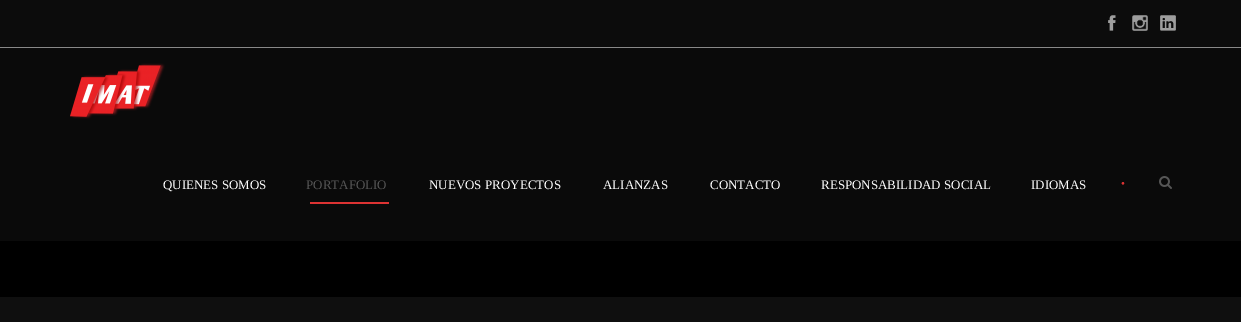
%!PS-Adobe-3.0
%%BoundingBox: 0 0 1241 322
%%LanguageLevel: 3
%%Pages: 1
%%EndComments
%%BeginProlog
/drawimage { 5 dict begin { /h /w /y /x /name } { exch def } forall
  gsave x y translate w h scale
  w h 8 [w 0 0 h 0 0] name (r) file false 3 colorimage grestore end } def
%%EndProlog
%%BeginSetup
<< /PageSize [1241 322] >> setpagedevice
%%EndSetup
%%Page: 1 1
0 322 translate 1 -1 scale
4 setmiterlimit
0 setgray
0 0 1241 322 rectfill
0.039 setgray
0 46 1241 195 rectfill
0.047 setgray
0 0 1241 46 rectfill
(images/1.raw) 1108 15 8 16 drawimage
(images/2.raw) 1132 15 16 16 drawimage
(images/3.raw) 1160 15 16 16 drawimage
0.537 setgray
0 47 1241 1 rectfill
(images/4.raw) 70 63 95 56 drawimage
(images/5.raw) 1159 176 13 13 drawimage
0.867 0.2 0.2 setrgbcolor
310 202 79 2 rectfill
0.059 setgray
0 297 1241 25 rectfill
/LiberationSerif-Regular [13 0 0 -13 0 0] selectfont
1 setgray
163 189 moveto (QUIENES SOMOS) show
0.333 setgray
306 189 moveto (PORTAFOLIO) show
1 setgray
429 189 moveto (NUEVOS PROYECTOS) show
603 189 moveto (ALIANZAS) show
710 189 moveto (CONTACTO) show
821 189 moveto (RESPONSABILIDAD SOCIAL) show
1031 189 moveto (IDIOMAS) show
/Merriweather-Regular [14 0 0 -14 0 0] selectfont
0.867 0.2 0.2 setrgbcolor
1120 188 moveto (•) show
showpage
%%EOF
